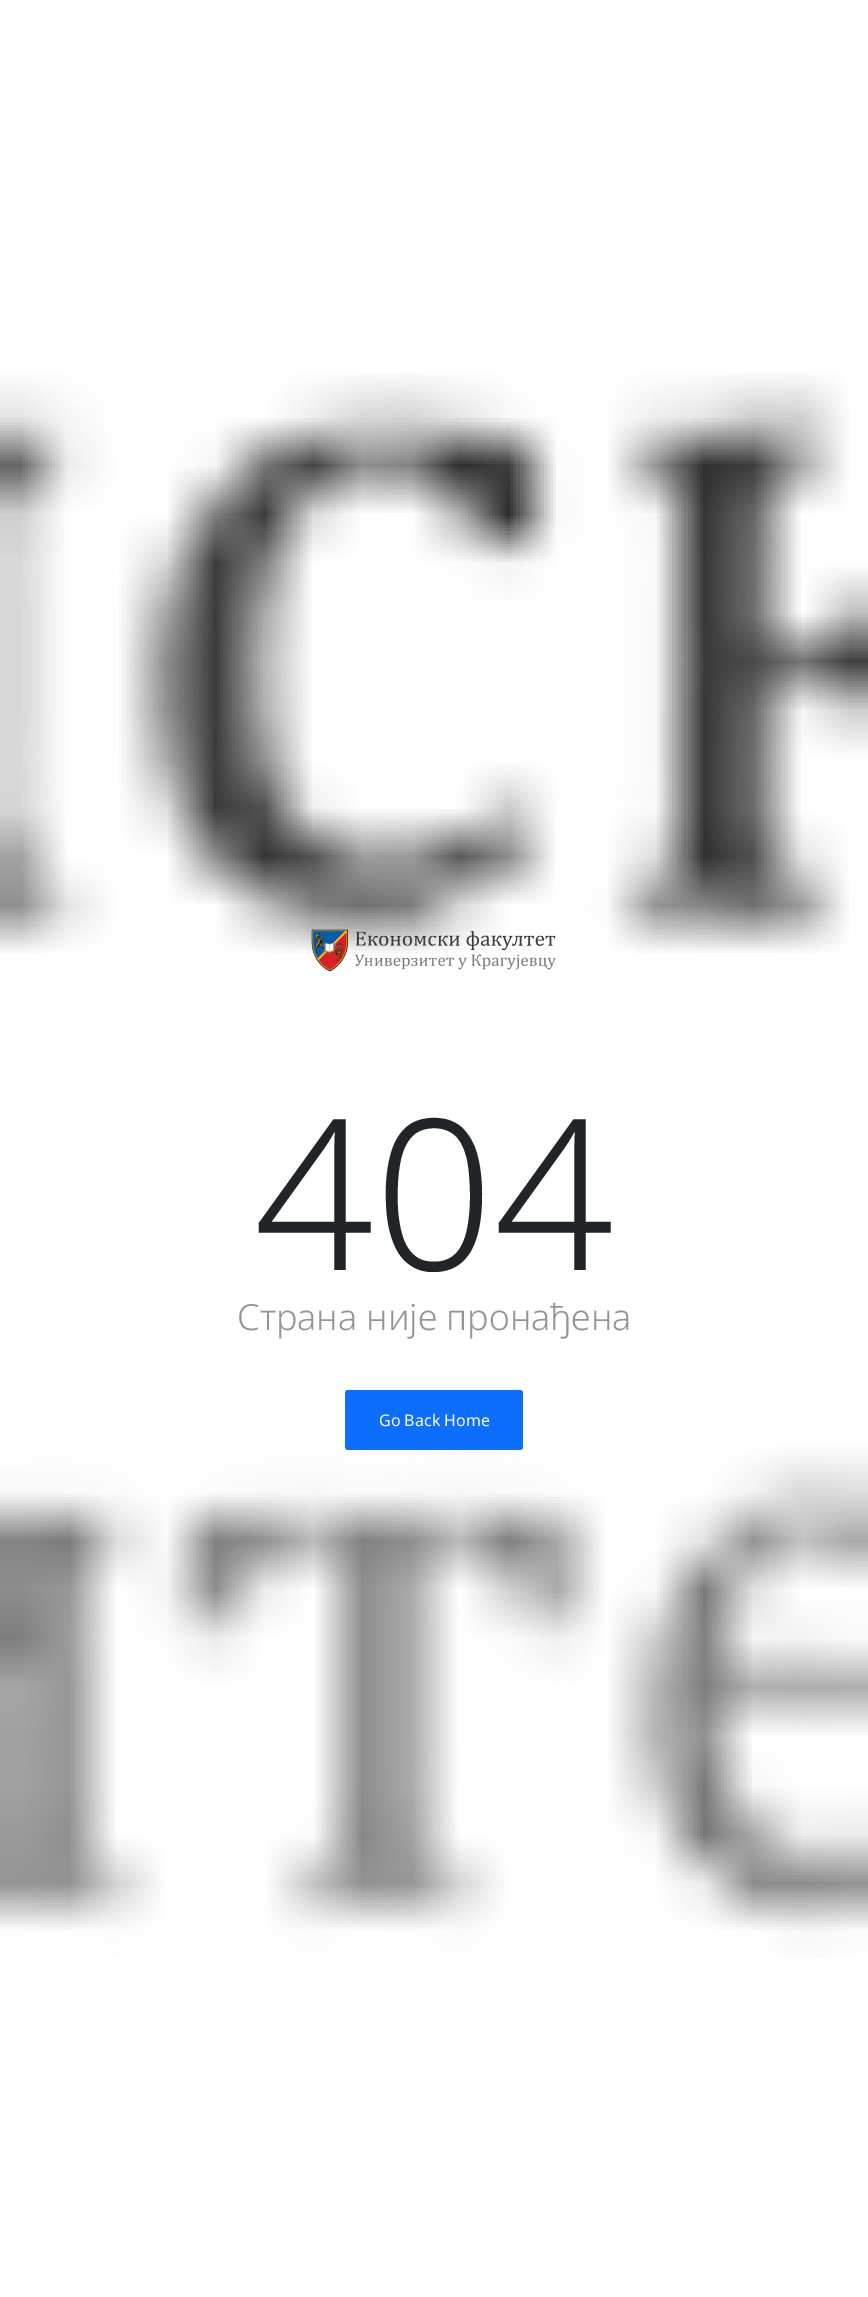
%!PS-Adobe-3.0
%%BoundingBox: 0 0 868 2297
%%LanguageLevel: 3
%%Pages: 1
%%EndComments
%%BeginProlog
/rrect { 5 dict begin { /r /h /w /y /x } { exch def } forall
  x r add y moveto x w add y 2 copy h add r arct x w add y h add x 1 index r arct
  x y h add x y r arct x y 2 copy exch w add exch r arct closepath end } def
/drawimage { 5 dict begin { /h /w /y /x /name } { exch def } forall
  gsave x y translate w h scale
  w h 8 [w 0 0 h 0 0] name (r) file false 3 colorimage grestore end } def
%%EndProlog
%%BeginSetup
<< /PageSize [868 2297] >> setpagedevice
%%EndSetup
%%Page: 1 1
0 2297 translate 1 -1 scale
4 setmiterlimit
1 setgray
0 0 868 2297 rectfill
(images/1.raw) 0 373 868 1585 drawimage
(images/2.raw) 311 929 245 43 drawimage
0.051 0.431 0.992 setrgbcolor
345 1390 178 60 3 rrect fill
/NotoSans-Light [210 0 0 -210 0 0] selectfont
0.129 0.145 0.161 setrgbcolor
254 1270 moveto (404) show
/NotoSans-Light [36 0 0 -36 0 0] selectfont
0.58 setgray
237 1330 moveto (Страна није пронађена) show
/NotoSans-Regular [16 0 0 -16 0 0] selectfont
1 setgray
379 1426 moveto (Go Back Home) show
showpage
%%EOF
